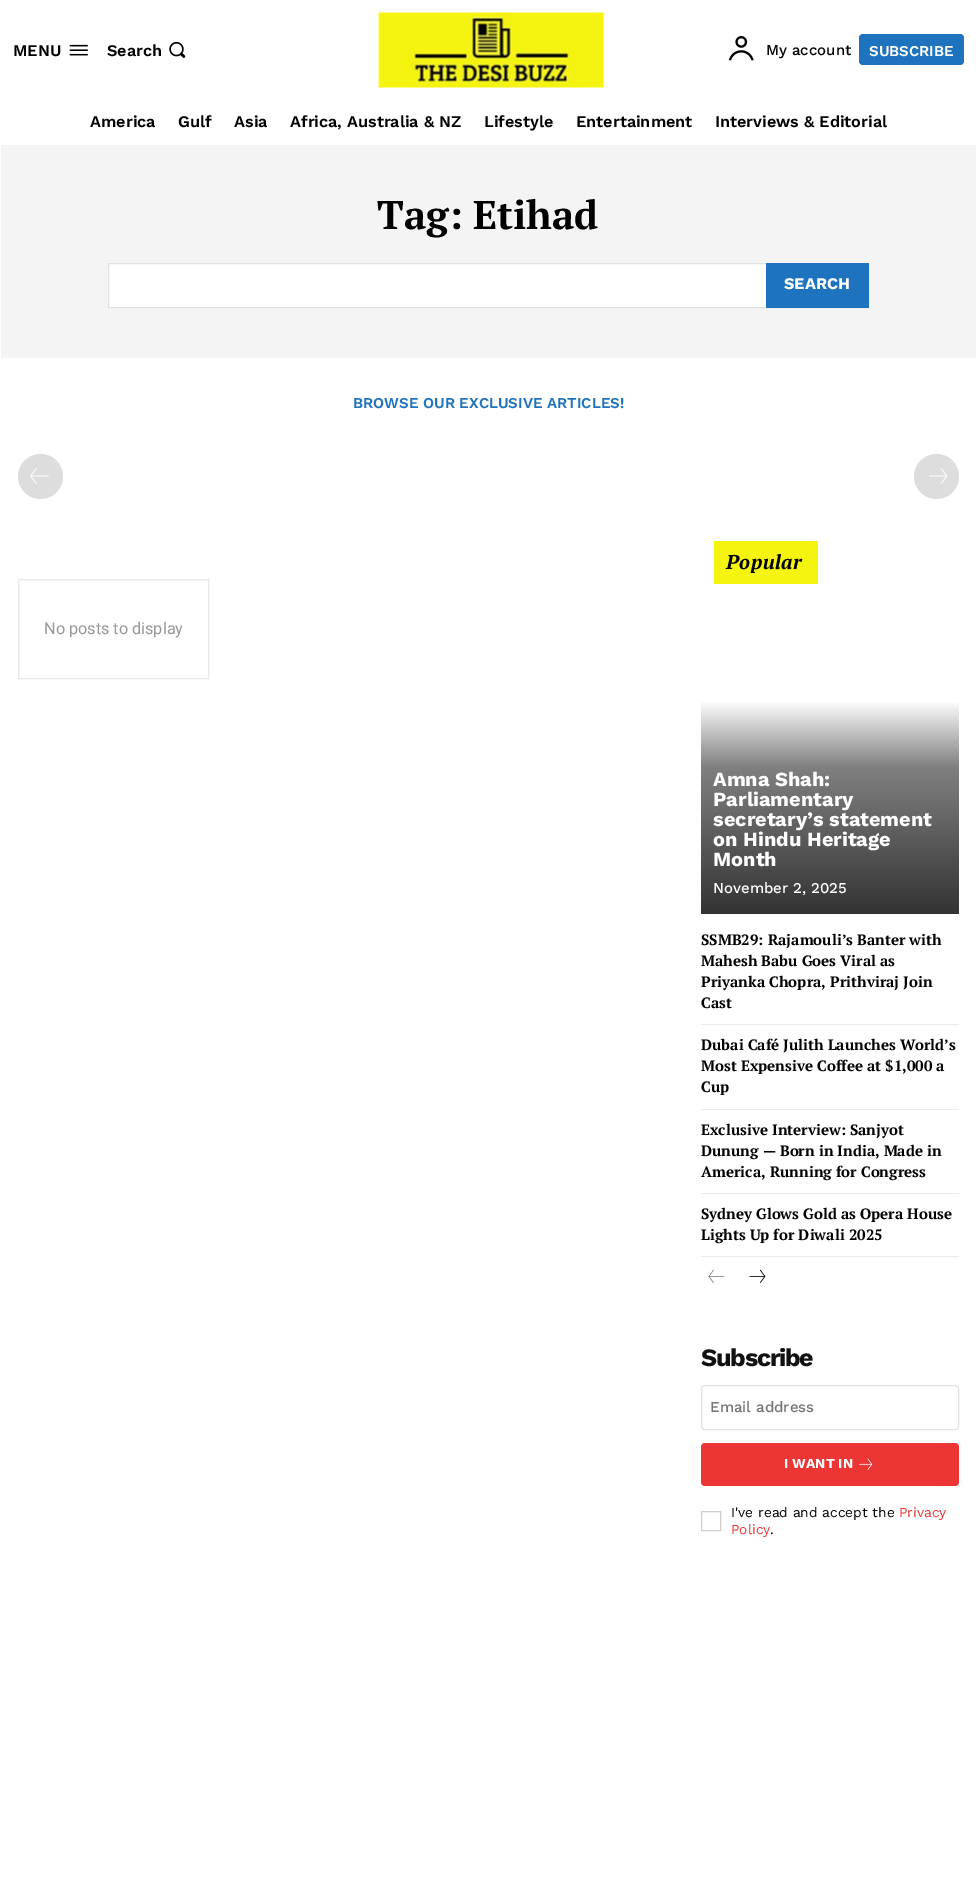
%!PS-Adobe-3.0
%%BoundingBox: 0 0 976 1885
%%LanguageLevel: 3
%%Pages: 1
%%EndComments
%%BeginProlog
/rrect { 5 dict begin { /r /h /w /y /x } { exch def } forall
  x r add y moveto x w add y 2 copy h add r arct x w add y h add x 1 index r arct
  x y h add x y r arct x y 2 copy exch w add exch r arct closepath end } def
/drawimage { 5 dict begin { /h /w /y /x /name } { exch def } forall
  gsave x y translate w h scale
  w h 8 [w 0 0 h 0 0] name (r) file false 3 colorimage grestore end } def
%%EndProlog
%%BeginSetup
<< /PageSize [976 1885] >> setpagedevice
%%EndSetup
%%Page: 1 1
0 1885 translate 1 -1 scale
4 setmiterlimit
1 setgray
0 0 976 1885 rectfill
(images/1.raw) 69 44 19 12 drawimage
(images/2.raw) 169 41 17 17 drawimage
(images/3.raw) 378 12 227 76 drawimage
(images/4.raw) 728 36 26 25 drawimage
0.118 0.451 0.745 setrgbcolor
859 34 105 31 4 rrect fill
0.957 setgray
1 145 975 213 rectfill
1 setgray
109 264 657 43 rectfill
0.882 setgray
108.5 263.5 760 44 rectstroke
0.118 0.451 0.745 setrgbcolor
766 263 103 45 rectfill
0.867 setgray
newpath 40.5 476.5 22.5 0 360 arc closepath fill
(images/5.raw) 30 468 19 16 drawimage
newpath 936.5 476.5 22.5 0 360 arc closepath fill
(images/6.raw) 929 468 18 16 drawimage
0.91 setgray
18.5 579.5 190 99 rectstroke
0.961 0.957 0.063 setrgbcolor
714 541 104 43 rectfill
gsave newpath 701 702 moveto 959 702 lineto 959 914 lineto 701 914 lineto closepath clip newpath
<< /ShadingType 2 /ColorSpace /DeviceRGB /Coords [830 914 830 564] /Extend [true true] /Function << /FunctionType 3 /Domain [0 1] /Functions [<< /FunctionType 2 /Domain [0 1] /C0 [0.2 0.2 0.2] /C1 [0.502 0.502 0.502] /N 1 >> << /FunctionType 2 /Domain [0 1] /C0 [0.502 0.502 0.502] /C1 [1 1 1] /N 1 >> << /FunctionType 2 /Domain [0 1] /C0 [1 1 1] /C1 [1 1 1] /N 1 >>] /Bounds [0.42 0.61] /Encode [0 1 0 1 0 1] >> >> shfill grestore
0.918 setgray
701 1024 258 1 rectfill
701 1109 258 1 rectfill
701 1193 258 1 rectfill
701 1256 258 1 rectfill
(images/7.raw) 708 1269 17 14 drawimage
(images/8.raw) 749 1269 17 15 drawimage
0.882 setgray
701.5 1385.5 257 44 3.5 rrect stroke
0.925 0.208 0.208 setrgbcolor
701 1443 258 43 4 rrect fill
(images/9.raw) 859 1458 14 12 drawimage
0.8 setgray
701.5 1511.5 19 19 rectstroke
/WorkSans-SemiBold [16.25 0 0 -16.25 0 0] selectfont
0 setgray
13 56 moveto (MENU) show
107 56 moveto (Search) show
/WorkSans-Medium [15 0 0 -15 0 0] selectfont
766 55 moveto (My account) show
/WorkSans-SemiBold [15 0 0 -15 0 0] selectfont
1 setgray
869 56 moveto (SUBSCRIBE) show
/WorkSans-SemiBold [16.25 0 0 -16.25 0 0] selectfont
0 setgray
90 127 moveto (America) show
178 127 moveto (Gulf) show
234 127 moveto (Asia) show
290 127 moveto (Africa, Australia & NZ) show
484 127 moveto (Lifestyle) show
576 127 moveto (Entertainment) show
715 127 moveto (Interviews & Editorial) show
/PTSerif-Bold [40 0 0 -40 0 0] selectfont
377 229 moveto (Tag: Etihad) show
/WorkSans-Bold [16.25 0 0 -16.25 0 0] selectfont
1 setgray
784 289 moveto (SEARCH) show
/WorkSans-SemiBold [15 0 0 -15 0 0] selectfont
0.118 0.451 0.745 setrgbcolor
353 408 moveto (BROWSE OUR EXCLUSIVE ARTICLES!) show
/Roboto-Regular [16.25 0 0 -16.25 0 0] selectfont
0.592 setgray
44 634 moveto (No posts to display) show
/PTSerif-BoldItalic [20 0 0 -20 0 0] selectfont
0 setgray
726 569 moveto 0.5 0 (Popular) ashow
/WorkSans-Bold [20 0 0 -20 0 0] selectfont
1 setgray
713 786 moveto (Amna Shah:) show
713 806 moveto (Parliamentary) show
713 826 moveto (secretary’s statement) show
713 846 moveto (on Hindu Heritage) show
713 866 moveto (Month) show
/WorkSans-Medium [15 0 0 -15 0 0] selectfont
713 893 moveto (November 2, 2025) show
/PTSerif-Bold [15 0 0 -15 0 0] selectfont
0 setgray
701 945 moveto (SSMB29: Rajamouli’s Banter with) show
701 966 moveto (Mahesh Babu Goes Viral as) show
701 987 moveto (Priyanka Chopra, Prithviraj Join) show
701 1008 moveto (Cast) show
701 1050 moveto (Dubai Café Julith Launches World’s) show
701 1071 moveto (Most Expensive Coffee at $1,000 a) show
701 1092 moveto (Cup) show
701 1135 moveto (Exclusive Interview: Sanjyot) show
701 1156 moveto (Dunung — Born in India, Made in) show
701 1177 moveto (America, Running for Congress) show
701 1219 moveto (Sydney Glows Gold as Opera House) show
701 1240 moveto (Lights Up for Diwali 2025) show
/WorkSans-Bold [25 0 0 -25 0 0] selectfont
0.067 setgray
701 1366 moveto -1.25 0 (Subscribe) ashow
/WorkSans-Medium [15 0 0 -15 0 0] selectfont
0.459 setgray
710 1412 moveto (Email address) show
/WorkSans-Bold [13.75 0 0 -13.75 0 0] selectfont
1 setgray
784 1468 moveto (I WANT IN) show
/WorkSans-Regular [13.75 0 0 -13.75 0 0] selectfont
0 setgray
731 1517 moveto (I've read and accept the) show
0.925 0.208 0.208 setrgbcolor
899 1517 moveto (Privacy) show
731 1534 moveto (Policy) show
0 setgray
770 1534 moveto (.) show
showpage
%%EOF
